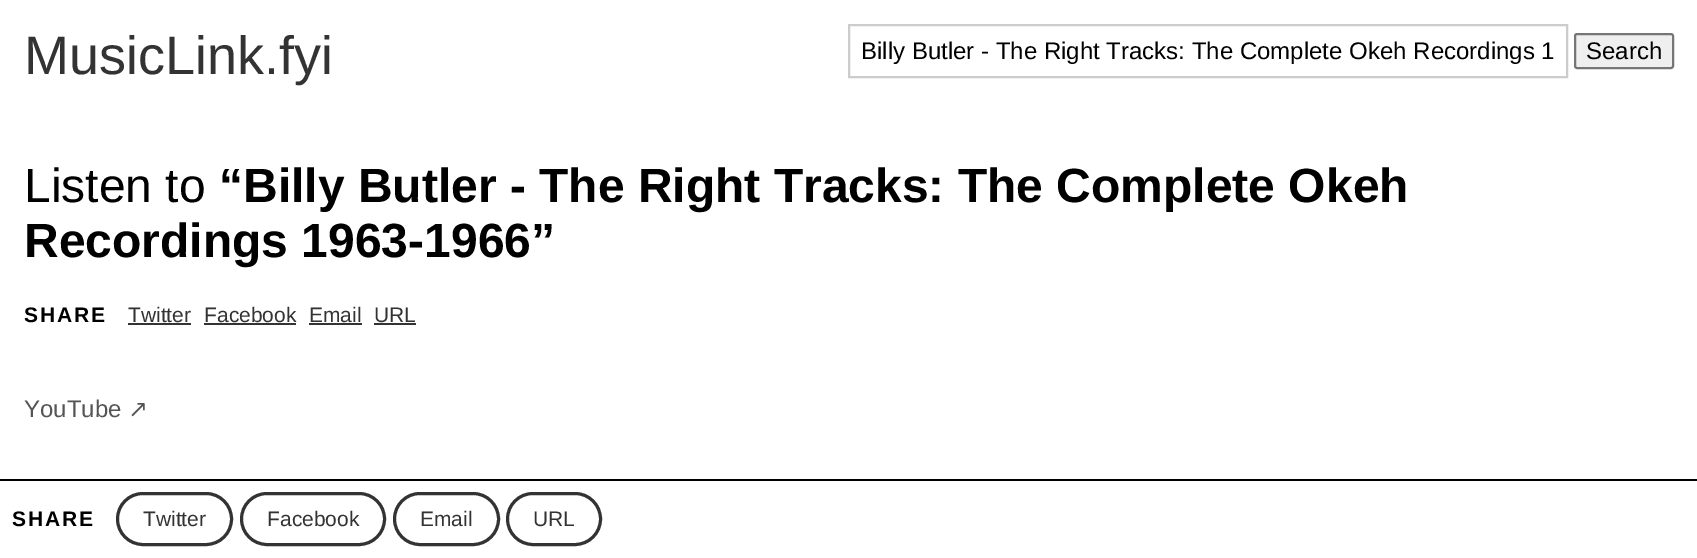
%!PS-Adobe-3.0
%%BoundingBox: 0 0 1697 558
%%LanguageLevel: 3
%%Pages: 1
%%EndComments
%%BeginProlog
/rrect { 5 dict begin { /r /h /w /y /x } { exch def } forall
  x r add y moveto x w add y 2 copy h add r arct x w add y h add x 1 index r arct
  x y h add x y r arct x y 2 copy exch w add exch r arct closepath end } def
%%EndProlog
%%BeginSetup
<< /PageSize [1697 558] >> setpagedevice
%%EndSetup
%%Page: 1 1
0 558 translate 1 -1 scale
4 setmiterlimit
1 setgray
0 0 1697 558 rectfill
0.8 setgray
2 setlinewidth
849 25 718 52 rectstroke
0.937 setgray
1575 34 98 34 2 rrect gsave fill grestore
0.463 setgray
stroke
0.2 setgray
128 323 63 2 rectfill
204 323 92 2 rectfill
309 323 53 2 rectfill
374 323 42 2 rectfill
0 setgray
0 479 1697 2 rectfill
0.2 setgray
3 setlinewidth
117.5 493.5 114 51 25.5 rrect stroke
241.5 493.5 143 51 25.5 rrect stroke
394.5 493.5 104 51 25.5 rrect stroke
507.5 493.5 93 51 25.5 rrect stroke
/LiberationSans-Regular [54 0 0 -54 0 0] selectfont
24 74 moveto (MusicLink.fyi) show
/LiberationSans-Regular [24 0 0 -24 0 0] selectfont
0 setgray
861 59 moveto (Billy Butler - The Right Tracks: The Complete Okeh Recordings 1) show
1586 59 moveto (Search) show
/LiberationSans-Regular [48 0 0 -48 0 0] selectfont
24 202 moveto (Listen to) show
/LiberationSans-Bold [48 0 0 -48 0 0] selectfont
219 202 moveto (“Billy Butler - The Right Tracks: The Complete Okeh) show
24 257 moveto (Recordings 1963-1966”) show
/LiberationSans-Bold [21 0 0 -21 0 0] selectfont
24 322 moveto 2 0 (SHARE) ashow
/LiberationSans-Regular [21 0 0 -21 0 0] selectfont
0.2 setgray
128 322 moveto (Twitter) show
204 322 moveto (Facebook) show
309 322 moveto (Email) show
374 322 moveto (URL) show
/LiberationSans-Regular [24 0 0 -24 0 0] selectfont
0.333 setgray
24 417 moveto (YouTube) show
/DejaVuSans-Regular [24 0 0 -24 0 0] selectfont
128 417 moveto (↗) show
/LiberationSans-Bold [21 0 0 -21 0 0] selectfont
0 setgray
12 526 moveto 2 0 (SHARE) ashow
/LiberationSans-Regular [21 0 0 -21 0 0] selectfont
0.2 setgray
143 526 moveto (Twitter) show
267 526 moveto (Facebook) show
420 526 moveto (Email) show
533 526 moveto (URL) show
showpage
%%EOF
